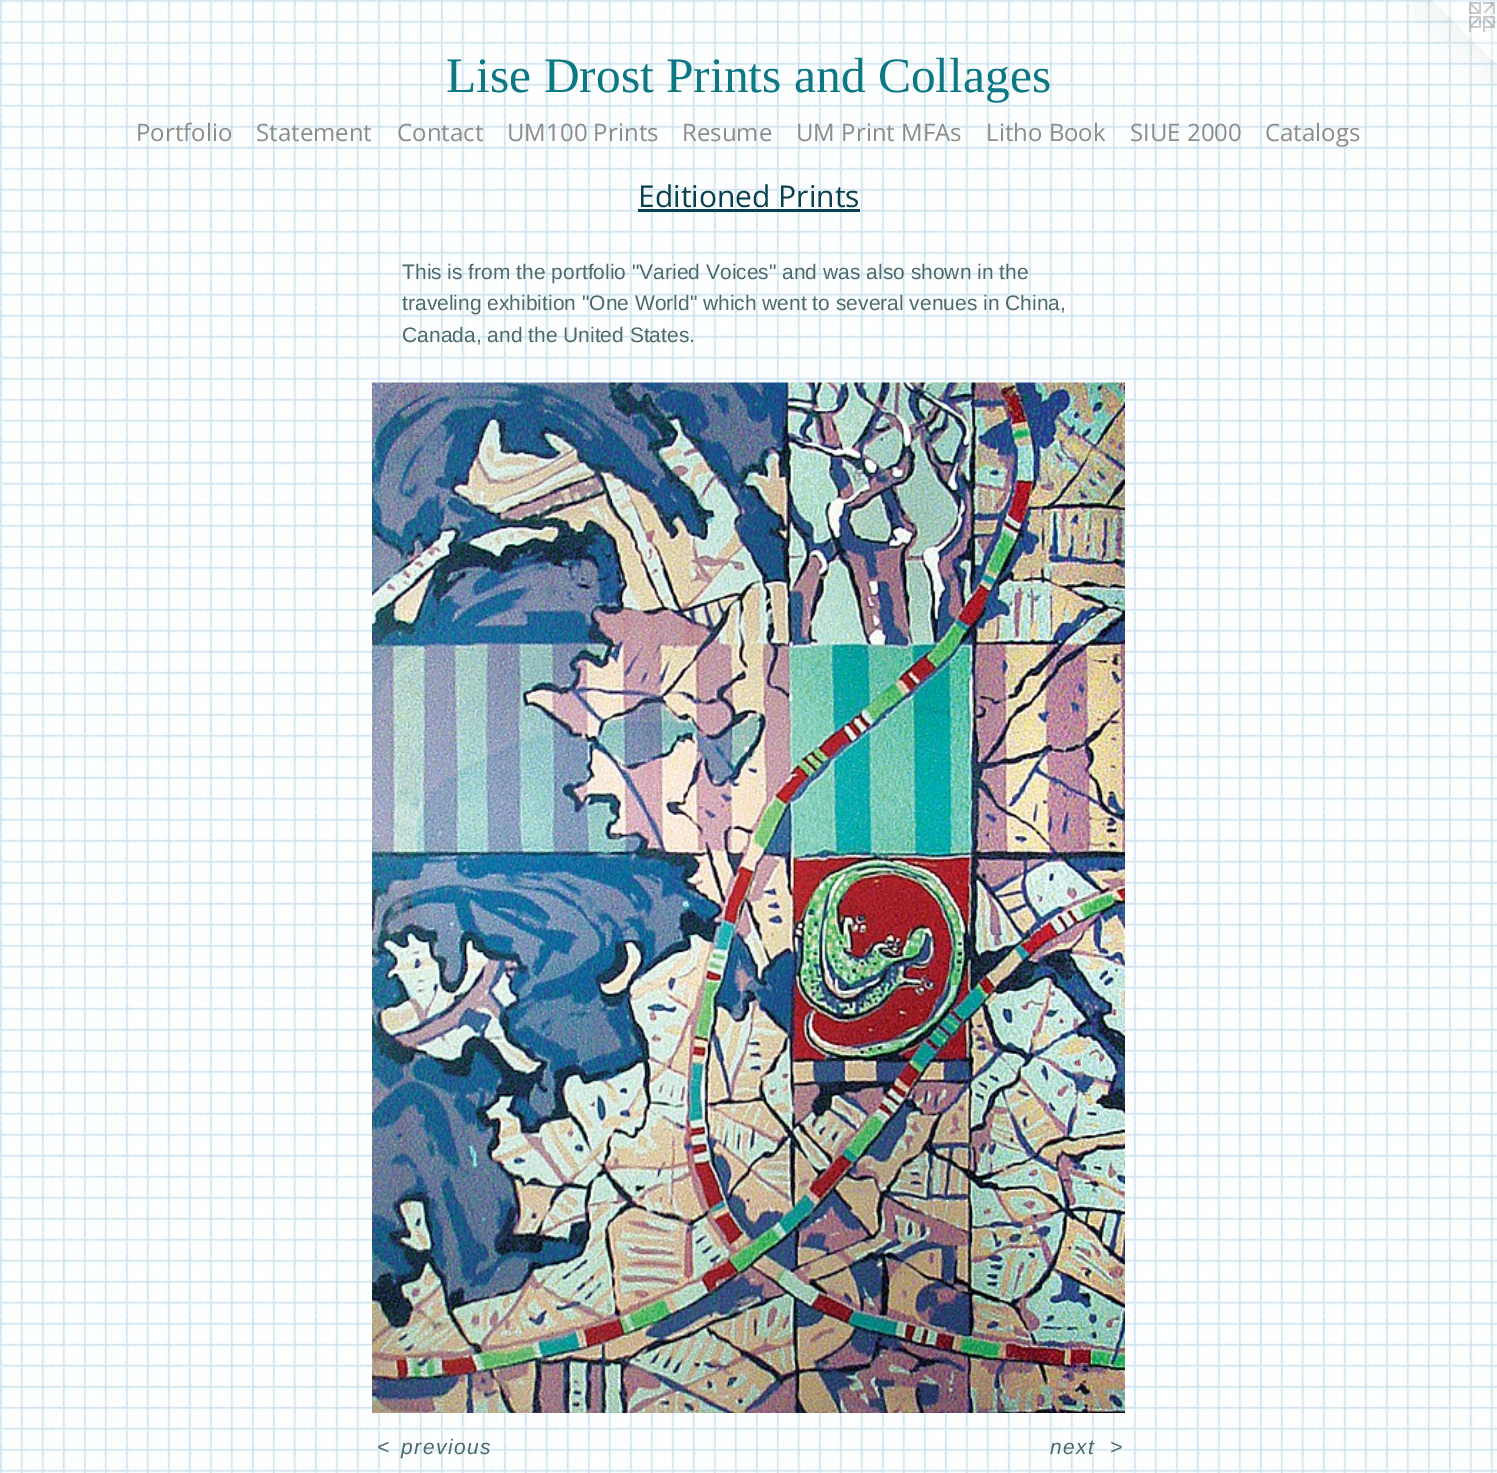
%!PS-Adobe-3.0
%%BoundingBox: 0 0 1497 1473
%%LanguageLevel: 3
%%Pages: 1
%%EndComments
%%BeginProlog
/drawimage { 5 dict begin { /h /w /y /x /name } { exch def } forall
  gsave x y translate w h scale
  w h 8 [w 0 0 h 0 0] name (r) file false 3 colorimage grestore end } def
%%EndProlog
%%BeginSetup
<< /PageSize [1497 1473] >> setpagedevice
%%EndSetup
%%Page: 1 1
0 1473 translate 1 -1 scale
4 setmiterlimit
1 setgray
0 0 1497 1473 rectfill
(images/1.raw) 0 0 1497 1473 drawimage
(images/2.raw) 1413 0 84 84 drawimage
0.035 0.251 0.302 setrgbcolor
638 209 222 3 rectfill
(images/3.raw) 372 382 753 1031 drawimage
/LiberationSerif-Regular [49.5 0 0 -49.5 0 0] selectfont
0.043 0.471 0.518 setrgbcolor
446 92 moveto (Lise Drost Prints and Collages) show
/OpenSans-Regular [24 0 0 -24 0 0] selectfont
0.549 setgray
136 141 moveto (Portfolio) show
256 141 moveto (Statement) show
397 141 moveto (Contact) show
507 141 moveto (UM100 Prints) show
682 141 moveto (Resume) show
796 141 moveto (UM Print MFAs) show
986 141 moveto (Litho Book) show
1130 141 moveto (SIUE 2000) show
1265 141 moveto (Catalogs) show
/OpenSans-Regular [30 0 0 -30 0 0] selectfont
0.035 0.251 0.302 setrgbcolor
638 207 moveto (Editioned Prints) show
/LiberationSans-Regular [21 0 0 -21 0 0] selectfont
0.302 0.416 0.416 setrgbcolor
402 279 moveto (This is from the portfolio "Varied Voices" and was also shown in the) show
402 310 moveto (traveling exhibition "One World" which went to several venues in China,) show
402 342 moveto (Canada, and the United States.) show
/LiberationSans-Italic [21 0 0 -21 0 0] selectfont
377 1454 moveto 1.5 0 (<) ashow
401 1454 moveto 1.5 0 (previous) ashow
1050 1454 moveto 1.5 0 (next) ashow
1110 1454 moveto 1.5 0 (>) ashow
showpage
%%EOF
